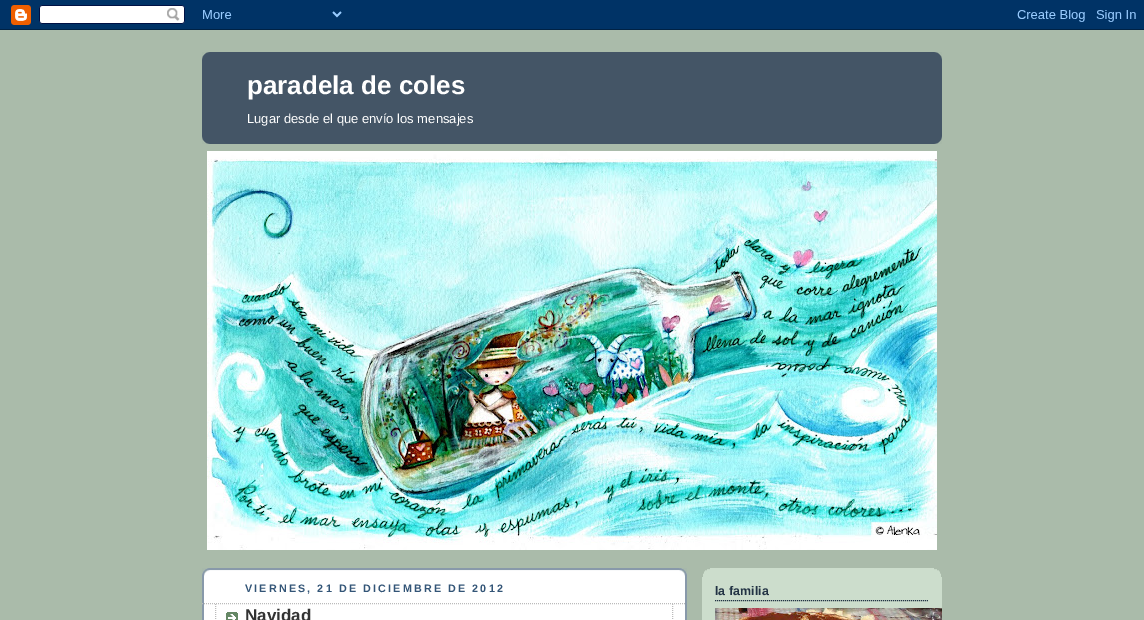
%!PS-Adobe-3.0
%%BoundingBox: 0 0 1144 620
%%LanguageLevel: 3
%%Pages: 1
%%EndComments
%%BeginProlog
/drawimage { 5 dict begin { /h /w /y /x /name } { exch def } forall
  gsave x y translate w h scale
  w h 8 [w 0 0 h 0 0] name (r) file false 3 colorimage grestore end } def
%%EndProlog
%%BeginSetup
<< /PageSize [1144 620] >> setpagedevice
%%EndSetup
%%Page: 1 1
0 620 translate 1 -1 scale
4 setmiterlimit
0.667 0.733 0.667 setrgbcolor
0 0 1144 620 rectfill
(images/1.raw) 0 0 1144 30 drawimage
0.267 0.333 0.4 setrgbcolor
202 52 740 92 rectfill
(images/2.raw) 202 52 740 8 drawimage
(images/3.raw) 202 136 740 8 drawimage
(images/4.raw) 207 151 730 399 drawimage
1 setgray
204 570 481 50 rectfill
(images/5.raw) 202 568 485 51 drawimage
(images/6.raw) 202 619 485 1 drawimage
0.733 setgray
[1 1] 0 setdash
newpath 202 603.5 moveto 686 603.5 lineto stroke
(images/7.raw) 226 612 12 8 drawimage
newpath 672.5 604 moveto 672.5 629 lineto stroke
newpath 215.5 604 moveto 215.5 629 lineto stroke
0.8 0.867 0.8 setrgbcolor
702 568 240 52 rectfill
(images/8.raw) 702 568 240 9 drawimage
0.133 0.2 0.267 setrgbcolor
newpath 715 600.5 moveto 929 600.5 lineto stroke
(images/9.raw) 715 608 227 12 drawimage
/LiberationSans-Bold [26 0 0 -26 0 0] selectfont
1 setgray
247 94 moveto (paradela de coles) show
/LiberationSans-Regular [13 0 0 -13 0 0] selectfont
247 123 moveto (Lugar desde el que envío los mensajes) show
/LiberationSans-Bold [10.75 0 0 -10.75 0 0] selectfont
0.2 0.333 0.467 setrgbcolor
245 592 moveto 2.15 0 (VIERNES, 21 DE DICIEMBRE DE 2012) ashow
/LiberationSans-Bold [17 0 0 -17 0 0] selectfont
0.2 setgray
245 621 moveto (Navidad) show
/LiberationSans-Bold [12.5 0 0 -12.5 0 0] selectfont
0.133 0.2 0.267 setrgbcolor
715 595 moveto (la familia) show
showpage
%%EOF
